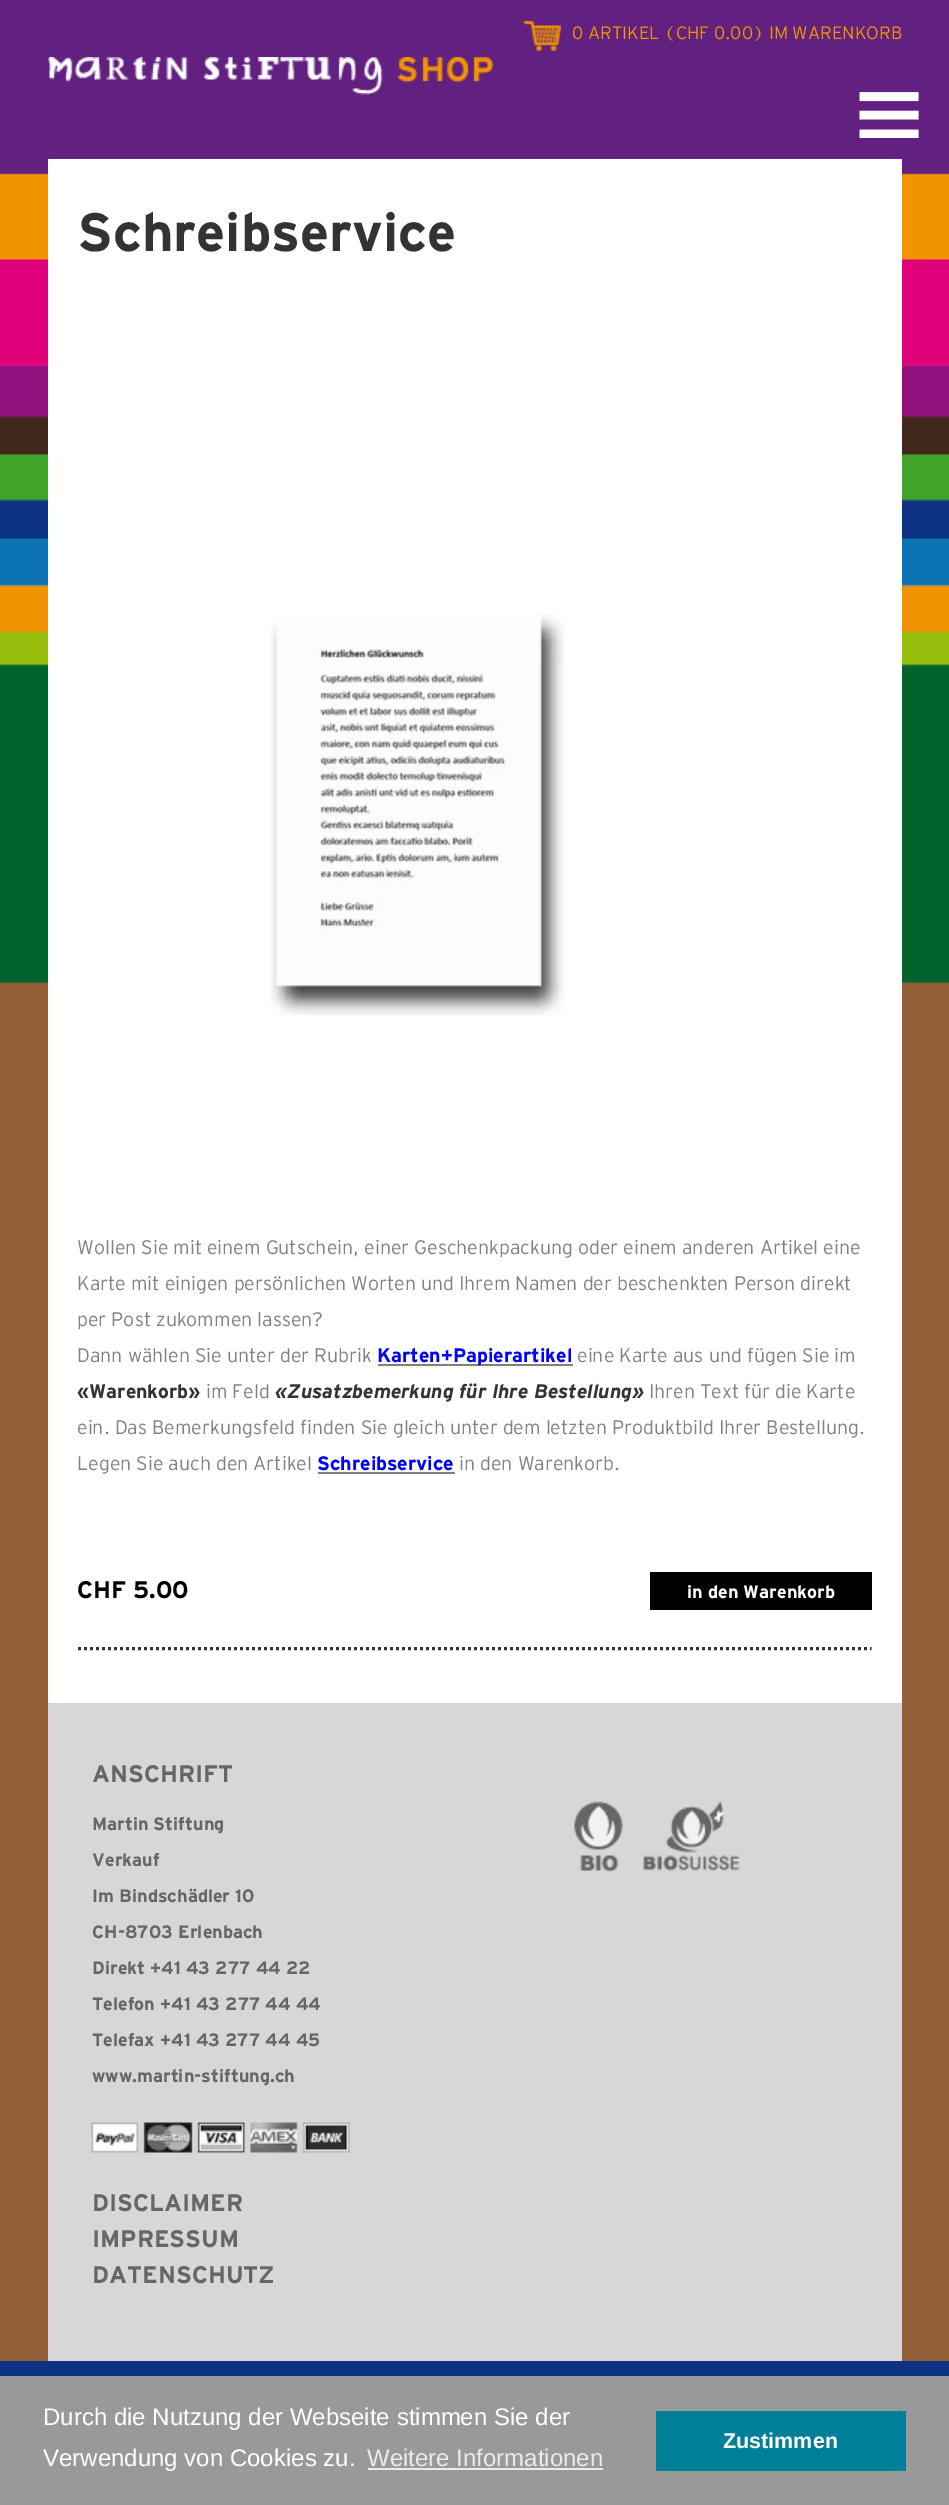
%!PS-Adobe-3.0
%%BoundingBox: 0 0 949 2505
%%LanguageLevel: 3
%%Pages: 1
%%EndComments
%%BeginProlog
/drawimage { 5 dict begin { /h /w /y /x /name } { exch def } forall
  gsave x y translate w h scale
  w h 8 [w 0 0 h 0 0] name (r) file false 3 colorimage grestore end } def
%%EndProlog
%%BeginSetup
<< /PageSize [949 2505] >> setpagedevice
%%EndSetup
%%Page: 1 1
0 2505 translate 1 -1 scale
4 setmiterlimit
0.569 0.369 0.212 setrgbcolor
0 0 949 2505 rectfill
(images/1.raw) 0 0 949 983 drawimage
(images/2.raw) 523 21 38 30 drawimage
(images/3.raw) 48 57 446 38 drawimage
1 setgray
48 159 854 1544 rectfill
(images/4.raw) 270 614 295 402 drawimage
0.502 setgray
378 1364 195 2 rectfill
318 1472 137 2 rectfill
0 setgray
650 1572 222 38 rectfill
0.2 setgray
3 setlinewidth
[3 3] 0 setdash
newpath 78 1648.5 moveto 871.5 1648.5 lineto stroke
0.843 setgray
48 1703 854 658 rectfill
(images/5.raw) 574 1801 166 71 drawimage
(images/6.raw) 91 2122 259 31 drawimage
(images/7.raw) 859 92 60 46 drawimage
0.047 0.192 0.514 setrgbcolor
0 2361 949 15 rectfill
0.6 setgray
0 2376 949 129 rectfill
0.922 setgray
368 2468 235 2 rectfill
0 0.498 0.596 setrgbcolor
656 2411 250 60 rectfill
/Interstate-Light [18 0 0 -18 0 0] selectfont
0.949 0.58 0 setrgbcolor
572 39 moveto (0 ARTIKEL \(CHF 0.00\) IM WARENKORB) show
/Interstate-Bold [54 0 0 -54 0 0] selectfont
0.2 setgray
77 251 moveto (Schreibservice) show
/Interstate-Light [19.5 0 0 -19.5 0 0] selectfont
0.502 setgray
77 1254 moveto (Wollen Sie mit einem Gutschein, einer Geschenkpackung oder einem anderen Artikel eine) show
77 1290 moveto (Karte mit einigen persönlichen Worten und Ihrem Namen der beschenkten Person direkt) show
77 1326 moveto (per Post zukommen lassen?) show
77 1362 moveto (Dann wählen Sie unter der Rubrik) show
/Interstate-Bold [19.5 0 0 -19.5 0 0] selectfont
0 0 1 setrgbcolor
377 1362 moveto (Karten+Papierartikel) show
/Interstate-Light [19.5 0 0 -19.5 0 0] selectfont
0.502 setgray
577 1362 moveto (eine Karte aus und fügen Sie im) show
/Interstate-Bold [19.5 0 0 -19.5 0 0] selectfont
0.2 setgray
77 1398 moveto («Warenkorb») show
/Interstate-Light [19.5 0 0 -19.5 0 0] selectfont
0.502 setgray
206 1398 moveto (im Feld) show
/Interstate-BoldItalic [19.5 0 0 -19.5 0 0] selectfont
0.2 setgray
275 1398 moveto («Zusatzbemerkung für Ihre Bestellung») show
/Interstate-Light [19.5 0 0 -19.5 0 0] selectfont
0.502 setgray
649 1398 moveto (Ihren Text für die Karte) show
77 1434 moveto (ein. Das Bemerkungsfeld finden Sie gleich unter dem letzten Produktbild Ihrer Bestellung.) show
77 1470 moveto (Legen Sie auch den Artikel) show
/Interstate-Bold [19.5 0 0 -19.5 0 0] selectfont
0 0 1 setrgbcolor
317 1470 moveto (Schreibservice) show
/Interstate-Light [19.5 0 0 -19.5 0 0] selectfont
0.502 setgray
459 1470 moveto (in den Warenkorb.) show
/Interstate-Bold [24 0 0 -24 0 0] selectfont
0 setgray
77 1598 moveto (CHF 5.00) show
/Interstate-Bold [18 0 0 -18 0 0] selectfont
1 setgray
687 1598 moveto (in den Warenkorb) show
/Interstate-Bold [24 0 0 -24 0 0] selectfont
0.4 setgray
92 1782 moveto (ANSCHRIFT) show
/Interstate-Bold [18 0 0 -18 0 0] selectfont
92 1830 moveto (Martin Stiftung) show
92 1866 moveto (Verkauf) show
92 1902 moveto (Im Bindschädler 10) show
92 1938 moveto (CH-8703 Erlenbach) show
92 1974 moveto (Direkt +41 43 277 44 22) show
92 2010 moveto (Telefon +41 43 277 44 44) show
92 2046 moveto (Telefax +41 43 277 44 45) show
92 2082 moveto (www.martin-stiftung.ch) show
/Interstate-Bold [24 0 0 -24 0 0] selectfont
92 2211 moveto (DISCLAIMER) show
92 2247 moveto (IMPRESSUM) show
92 2283 moveto (DATENSCHUTZ) show
/LiberationSans-Regular [24 0 0 -24 0 0] selectfont
1 setgray
43 2425 moveto (Durch die Nutzung der Webseite stimmen Sie der) show
43 2466 moveto (Verwendung von Cookies zu.) show
0.922 setgray
367 2466 moveto (Weitere Informationen) show
/LiberationSans-Bold [21.5 0 0 -21.5 0 0] selectfont
1 setgray
723 2448 moveto (Zustimmen) show
showpage
%%EOF
